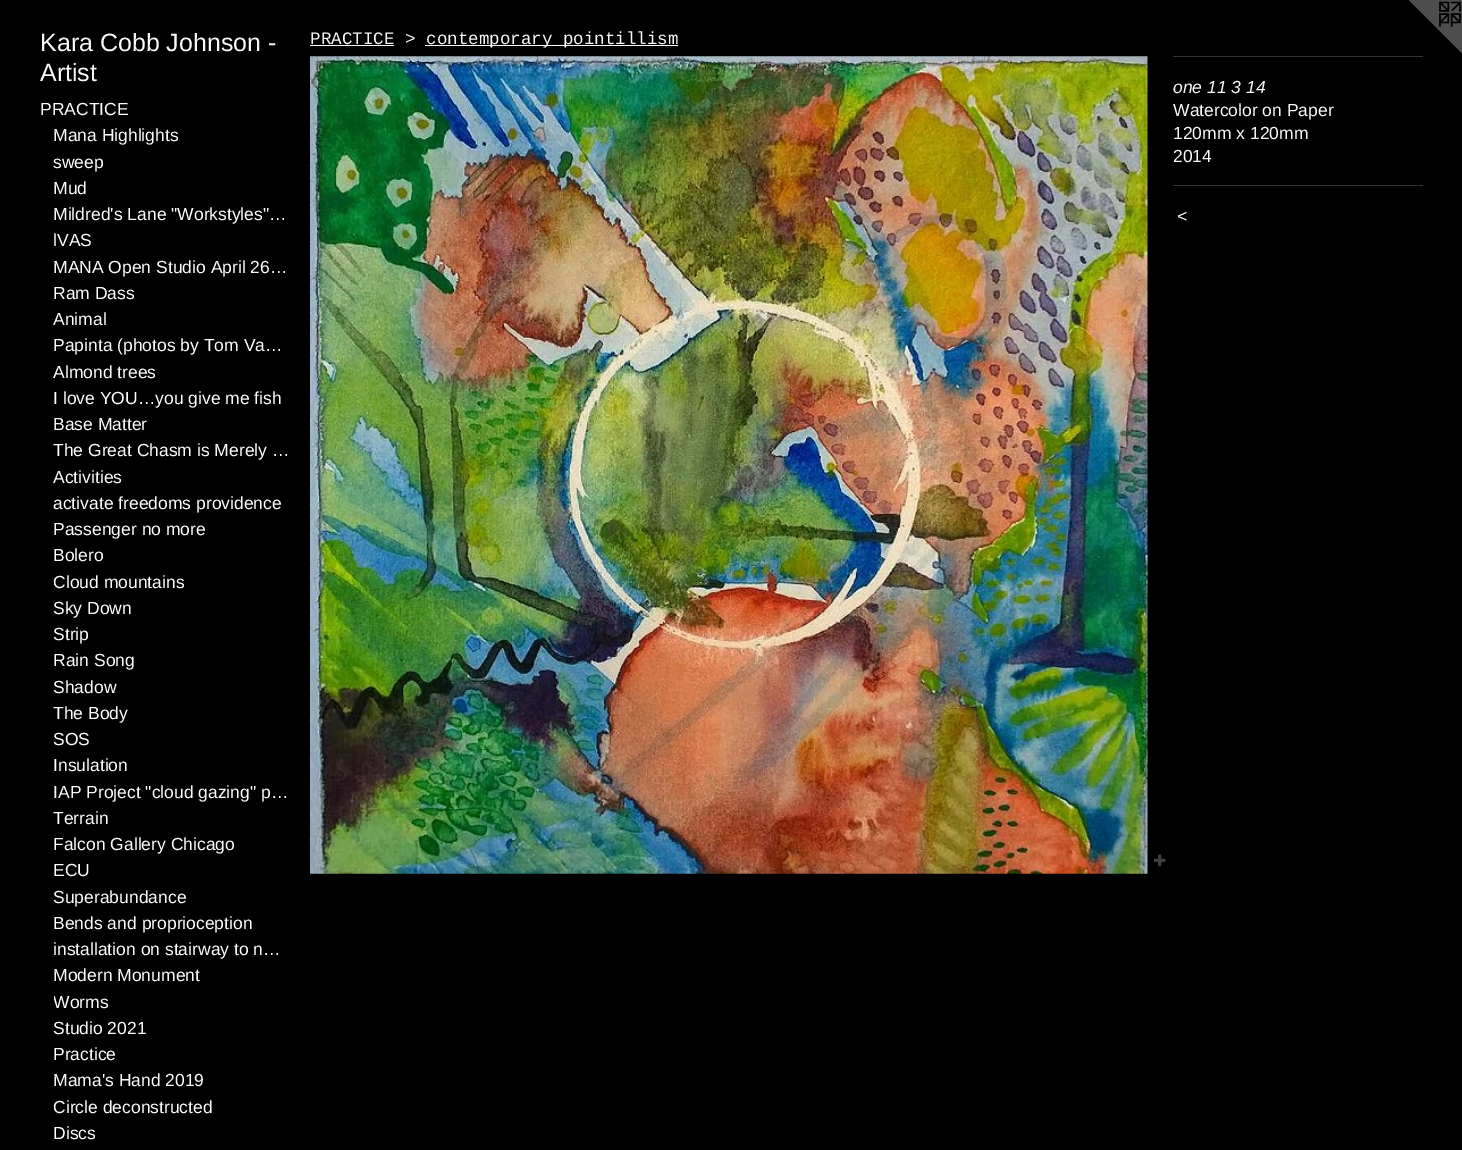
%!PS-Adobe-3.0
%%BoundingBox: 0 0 1462 1150
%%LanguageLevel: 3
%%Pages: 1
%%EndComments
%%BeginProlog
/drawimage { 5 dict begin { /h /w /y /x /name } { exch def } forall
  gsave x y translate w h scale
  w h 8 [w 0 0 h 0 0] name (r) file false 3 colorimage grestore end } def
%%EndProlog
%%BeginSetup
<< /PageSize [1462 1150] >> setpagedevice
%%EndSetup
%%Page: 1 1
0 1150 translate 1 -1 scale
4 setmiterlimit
0 setgray
0 0 1462 1150 rectfill
0.984 0.988 0.98 setrgbcolor
310 45 84 1 rectfill
425 45 253 1 rectfill
(images/1.raw) 310 56 838 818 drawimage
(images/2.raw) 1153 854 13 13 drawimage
0.2 setgray
1173 56 250 1 rectfill
1173 185 250 1 rectfill
(images/3.raw) 1409 0 53 54 drawimage
/LiberationSans-Regular [25 0 0 -25 0 0] selectfont
0.984 0.973 0.988 setrgbcolor
40 51 moveto (Kara Cobb Johnson -) show
40 81 moveto (Artist) show
/LiberationSans-Regular [17.5 0 0 -17.5 0 0] selectfont
0.996 setgray
40 115 moveto (PRACTICE) show
53 141 moveto (Mana Highlights) show
53 168 moveto (sweep) show
53 194 moveto (Mud) show
53 220 moveto (Mildred's Lane "Workstyles"…) show
53 246 moveto (lVAS) show
53 273 moveto (MANA Open Studio April 26…) show
53 299 moveto (Ram Dass) show
53 325 moveto (Animal) show
53 351 moveto (Papinta \(photos by Tom Va…) show
53 378 moveto (Almond trees) show
53 404 moveto (I love YOU…you give me fish) show
53 430 moveto (Base Matter) show
53 456 moveto (The Great Chasm is Merely …) show
53 483 moveto (Activities) show
53 509 moveto (activate freedoms providence) show
53 535 moveto (Passenger no more) show
53 561 moveto (Bolero) show
53 588 moveto (Cloud mountains) show
53 614 moveto (Sky Down) show
53 640 moveto (Strip) show
53 666 moveto (Rain Song) show
53 693 moveto (Shadow) show
53 719 moveto (The Body) show
53 745 moveto (SOS) show
53 771 moveto (Insulation) show
53 798 moveto (IAP Project "cloud gazing" p…) show
53 824 moveto (Terrain) show
53 850 moveto (Falcon Gallery Chicago) show
53 876 moveto (ECU) show
53 903 moveto (Superabundance) show
53 929 moveto (Bends and proprioception) show
53 955 moveto (installation on stairway to n…) show
53 981 moveto (Modern Monument) show
gsave
54 989 236 26 rectclip
53 1008 moveto (Worms) show
grestore
53 1034 moveto (Studio 2021) show
53 1060 moveto (Practice) show
53 1086 moveto (Mama's Hand 2019) show
53 1113 moveto (Circle deconstructed) show
53 1139 moveto (Discs) show
/LiberationMono-Regular [17.5 0 0 -17.5 0 0] selectfont
0.984 0.973 0.988 setrgbcolor
310 44 moveto (PRACTICE >) show
426 44 moveto (contemporary pointillism) show
/LiberationSans-Italic [17.5 0 0 -17.5 0 0] selectfont
1173 93 moveto (one 11 3 14) show
/LiberationSans-Regular [17.5 0 0 -17.5 0 0] selectfont
1173 116 moveto (Watercolor on Paper) show
1173 139 moveto (120mm x 120mm) show
1173 162 moveto (2014) show
/LiberationSans-Italic [17.5 0 0 -17.5 0 0] selectfont
1177 222 moveto 1 0 (<) ashow
showpage
%%EOF
